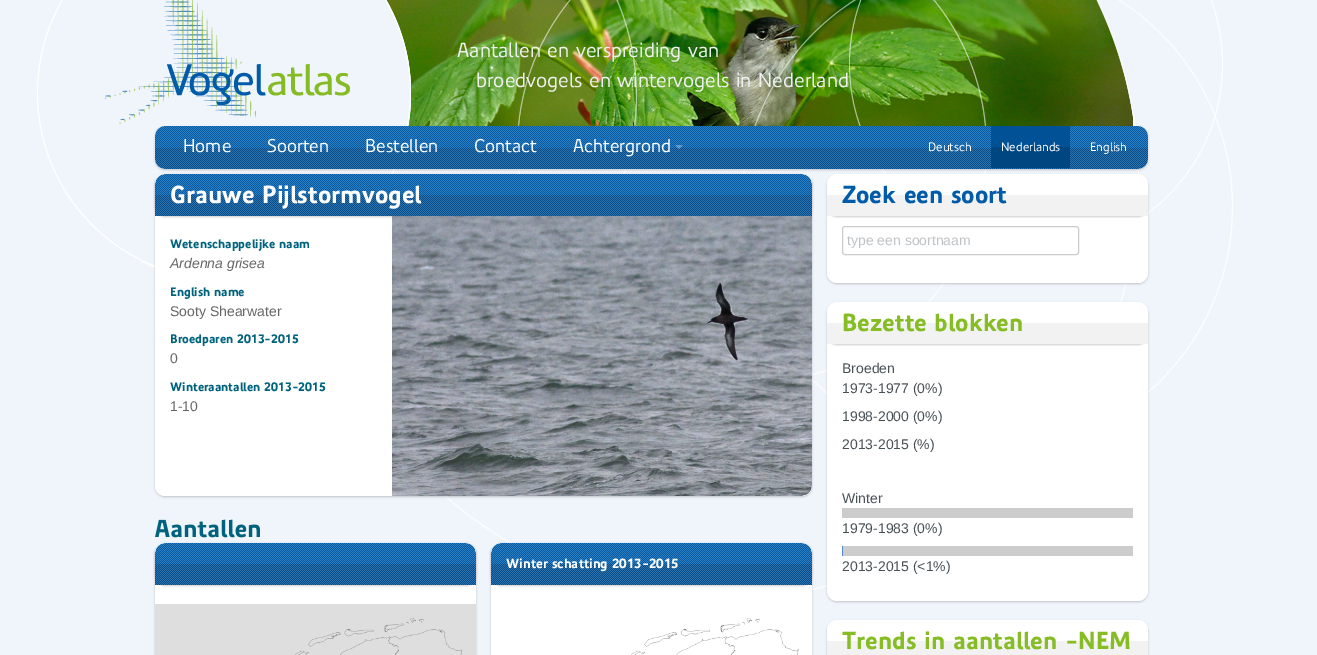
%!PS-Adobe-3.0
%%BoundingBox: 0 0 1317 655
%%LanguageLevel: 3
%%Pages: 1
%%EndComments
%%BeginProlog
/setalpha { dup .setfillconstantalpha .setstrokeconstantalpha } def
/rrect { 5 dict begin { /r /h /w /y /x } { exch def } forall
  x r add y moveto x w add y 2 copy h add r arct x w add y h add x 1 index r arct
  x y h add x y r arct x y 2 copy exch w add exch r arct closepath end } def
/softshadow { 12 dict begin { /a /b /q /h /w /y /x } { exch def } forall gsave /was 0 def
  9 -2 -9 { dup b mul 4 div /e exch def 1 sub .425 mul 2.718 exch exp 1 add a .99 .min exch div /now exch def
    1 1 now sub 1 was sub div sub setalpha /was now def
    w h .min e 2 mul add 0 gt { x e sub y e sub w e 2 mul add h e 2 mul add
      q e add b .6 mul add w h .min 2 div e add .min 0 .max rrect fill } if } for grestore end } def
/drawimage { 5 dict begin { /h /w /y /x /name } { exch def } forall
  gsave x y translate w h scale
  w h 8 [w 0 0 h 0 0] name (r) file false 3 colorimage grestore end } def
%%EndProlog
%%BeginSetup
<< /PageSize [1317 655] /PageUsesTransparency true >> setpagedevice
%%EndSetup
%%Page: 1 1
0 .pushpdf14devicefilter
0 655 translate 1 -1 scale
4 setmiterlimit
0.941 0.961 0.984 setrgbcolor
0 0 1317 655 rectfill
(images/3.raw) 386 0 747 126 drawimage
0 setgray
827 621 321 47 10 1 0.2 softshadow
1 setgray
827 620 321 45 10 rrect fill
0.949 setgray
827 641 321 14 rectfill
/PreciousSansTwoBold-Bold [24 0 0 -24 0 0] selectfont
0 0.388 0.49 setrgbcolor
155 537 moveto (Aantallen) show
(images/2.raw) 140 0 1093 590 drawimage
(images/1.raw) 37 0 374 267 drawimage
0 setgray
155 175 657 322 10 1 0.2 softshadow
1 setgray
155 174 657 322 10 rrect fill
/LiberationSans-Regular [14 0 0 -14 0 0] selectfont
0.4 setgray
170 411 moveto (1-10) show
/PreciousSansTwoBold-Bold [12 0 0 -12 0 0] selectfont
0 0.388 0.49 setrgbcolor
170 391 moveto (Winteraantallen 2013-2015) show
/LiberationSans-Regular [14 0 0 -14 0 0] selectfont
0.4 setgray
170 363 moveto (0) show
/PreciousSansTwoBold-Bold [12 0 0 -12 0 0] selectfont
0 0.388 0.49 setrgbcolor
170 343 moveto (Broedparen 2013-2015) show
/LiberationSans-Regular [14 0 0 -14 0 0] selectfont
0.4 setgray
170 316 moveto (Sooty Shearwater) show
/PreciousSansTwoBold-Bold [12 0 0 -12 0 0] selectfont
0 0.388 0.49 setrgbcolor
170 296 moveto (English name) show
/LiberationSans-Italic [14 0 0 -14 0 0] selectfont
0.4 setgray
170 268 moveto (Ardenna grisea) show
/PreciousSansTwoBold-Bold [12 0 0 -12 0 0] selectfont
0 0.388 0.49 setrgbcolor
170 248 moveto (Wetenschappelijke naam) show
0 setgray
155 175 657 42 10 1 0.2 softshadow
(images/6.raw) 155 174 657 42 drawimage
/PreciousSansTwoBold-Bold [24 0 0 -24 0 0] selectfont
1 setgray
170 203 moveto (Grauwe Pijlstormvogel) show
(images/7.raw) 392 216 420 280 drawimage
(images/4.raw) 105 0 245 124 drawimage
0 setgray
155 127 993 43 10 1 0.2 softshadow
(images/5.raw) 155 126 993 43 drawimage
0.3 setalpha
1 setgray
newpath 675 145 moveto 683 145 lineto 679 149 lineto closepath fill
/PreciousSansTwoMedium-Medium [18 0 0 -18 0 0] selectfont
1 setalpha
573 152 moveto (Achtergrond) show
/PreciousSansTwoMedium-Medium [12 0 0 -12 0 0] selectfont
928 151 moveto (Deutsch) show
0 0.275 0.502 setrgbcolor
991 147 79 21 rectfill
0 0.318 0.584 setrgbcolor
991 126 79 21 rectfill
1 setgray
1001 151 moveto (Nederlands) show
1090 151 moveto (English) show
/PreciousSansTwoMedium-Medium [18 0 0 -18 0 0] selectfont
474 152 moveto (Contact) show
365 152 moveto (Bestellen) show
267 152 moveto (Soorten) show
183 152 moveto (Home) show
/PreciousSansTwoMedium-Medium [20 0 0 -20 0 0] selectfont
0.937 setgray
476 87 moveto (broedvogels en wintervogels in Nederland) show
457 57 moveto (Aantallen en verspreiding van) show
0 setgray
155 544 321 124 10 1 0.2 softshadow
1 setgray
155 543 321 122 10 rrect fill
0 setgray
155 544 321 42 10 1 0.2 softshadow
(images/8.raw) 155 543 321 42 drawimage
(images/9.raw) 155 604 321 51 drawimage
491 544 321 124 10 1 0.2 softshadow
1 setgray
491 543 321 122 10 rrect fill
0 setgray
491 544 321 42 10 1 0.2 softshadow
(images/10.raw) 491 543 321 42 drawimage
/PreciousSansTwoBold-Bold [13 0 0 -13 0 0] selectfont
1 setgray
506 568 moveto (Winter schatting 2013-2015) show
(images/11.raw) 631 617 168 38 drawimage
0 setgray
827 175 321 109 10 1 0.2 softshadow
1 setgray
827 174 321 109 10 rrect fill
gsave
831 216 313 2 rectclip
0 setgray
827 175 321 42 10 1 0.2 softshadow
grestore
0.949 setgray
827 195 321 21 rectfill
/PreciousSansTwoBold-Bold [24 0 0 -24 0 0] selectfont
0 0.361 0.663 setrgbcolor
842 203 moveto (Zoek een soort) show
0.8 setgray
842.5 226.5 236 28 2.5 rrect stroke
/LiberationSans-Regular [14 0 0 -14 0 0] selectfont
0.749 0.765 0.776 setrgbcolor
847 245 moveto (type een soortnaam) show
0 setgray
827 303 321 299 10 1 0.2 softshadow
1 setgray
827 302 321 299 10 rrect fill
gsave
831 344 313 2 rectclip
0 setgray
827 303 321 42 10 1 0.2 softshadow
grestore
0.949 setgray
827 323 321 21 rectfill
/PreciousSansTwoBold-Bold [24 0 0 -24 0 0] selectfont
0.525 0.737 0.141 setrgbcolor
842 331 moveto (Bezette blokken) show
/LiberationSans-Regular [14 0 0 -14 0 0] selectfont
0.282 0.318 0.337 setrgbcolor
842 373 moveto (Broeden) show
842 393 moveto (1973-1977 \(0%\)) show
842 421 moveto (1998-2000 \(0%\)) show
842 449 moveto (2013-2015 \(%\)) show
842 503 moveto (Winter) show
0.8 setgray
842 508 291 10 rectfill
0.282 0.318 0.337 setrgbcolor
842 533 moveto (1979-1983 \(0%\)) show
0.8 setgray
843 546 290 10 rectfill
0.333 0.533 0.8 setrgbcolor
842 546 1 10 rectfill
0.282 0.318 0.337 setrgbcolor
842 571 moveto (2013-2015 \(<1%\)) show
/PreciousSansTwoBold-Bold [24 0 0 -24 0 0] selectfont
0.525 0.737 0.141 setrgbcolor
842 649 moveto (Trends in aantallen -NEM) show
.poppdf14devicefilter showpage
%%EOF
